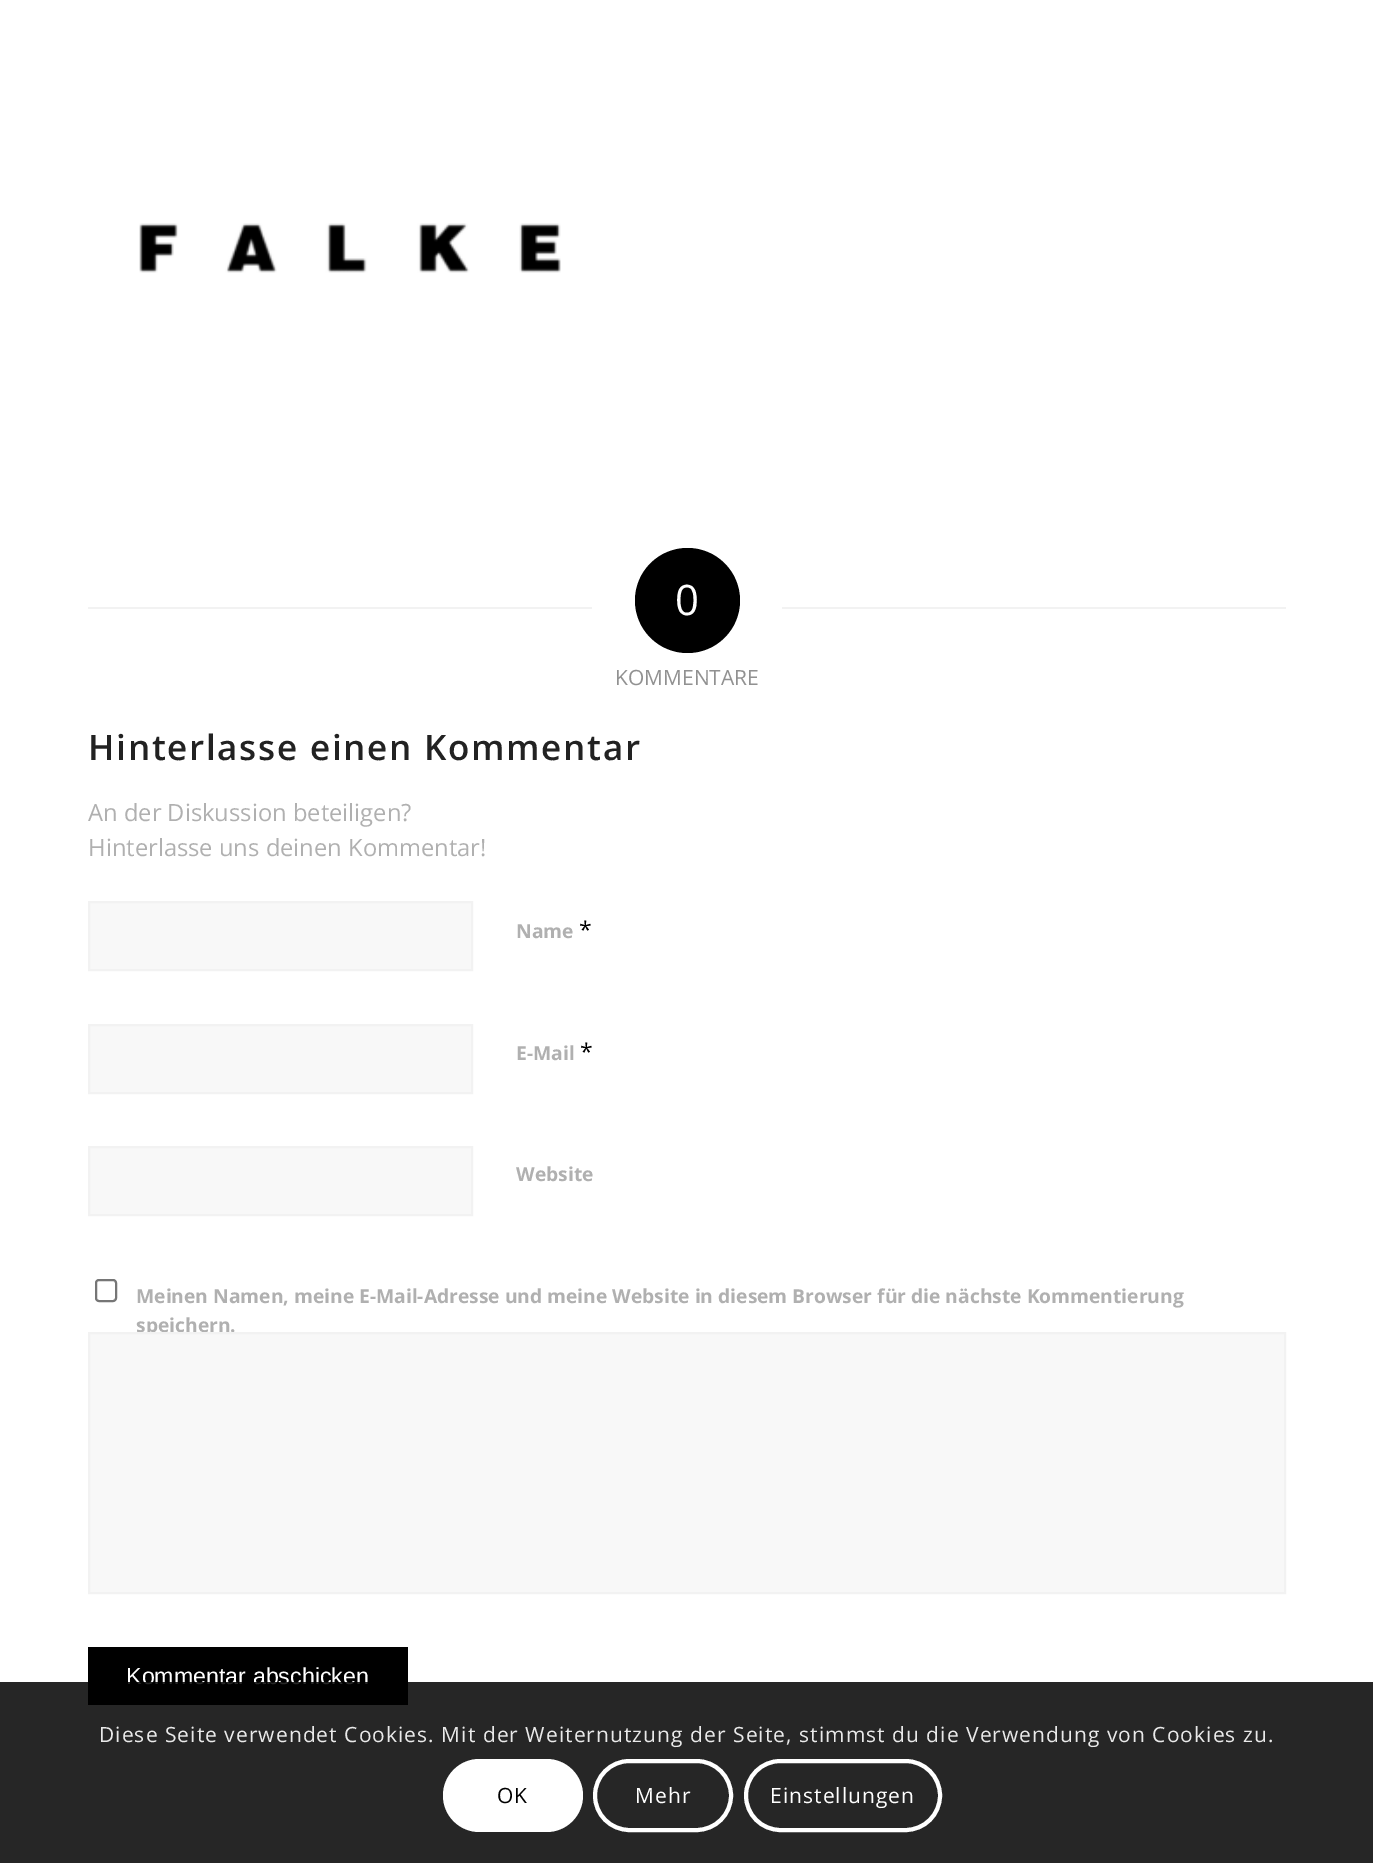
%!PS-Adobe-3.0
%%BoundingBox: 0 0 1373 1863
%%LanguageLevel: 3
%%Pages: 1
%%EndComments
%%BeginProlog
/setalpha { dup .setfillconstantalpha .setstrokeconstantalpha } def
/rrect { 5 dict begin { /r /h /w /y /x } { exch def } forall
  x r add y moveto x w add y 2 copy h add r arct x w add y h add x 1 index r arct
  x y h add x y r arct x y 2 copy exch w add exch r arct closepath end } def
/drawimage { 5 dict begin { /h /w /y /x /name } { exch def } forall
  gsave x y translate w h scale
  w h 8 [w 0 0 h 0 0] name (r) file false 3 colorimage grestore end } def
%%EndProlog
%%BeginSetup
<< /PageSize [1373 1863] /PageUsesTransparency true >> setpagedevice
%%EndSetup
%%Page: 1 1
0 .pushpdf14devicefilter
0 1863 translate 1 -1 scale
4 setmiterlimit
1 setgray
0 0 1373 1863 rectfill
(images/1.raw) 139 223 422 50 drawimage
0.949 setgray
88 607 504 2 rectfill
0 setgray
newpath 687.5 600.5 52.5 0 360 arc closepath fill
0.949 setgray
782 607 504 2 rectfill
0.973 setgray
newpath 89 902 moveto 472 902 lineto 472 970 lineto 89 970 lineto closepath gsave fill grestore
0.949 setgray
2 setlinewidth
stroke
0.973 setgray
newpath 89 1025 moveto 472 1025 lineto 472 1093 lineto 89 1093 lineto closepath gsave fill grestore
0.949 setgray
stroke
0.973 setgray
newpath 89 1147 moveto 472 1147 lineto 472 1215 lineto 89 1215 lineto closepath gsave fill grestore
0.949 setgray
stroke
0.463 setgray
96 1280 20 21 3 rrect stroke
0 setgray
88 1647 320 58 rectfill
/OpenSans-Regular [42 0 0 -42 0 0] selectfont
1 setgray
675 615 moveto (0) show
/OpenSans-Regular [21 0 0 -21 0 0] selectfont
0.569 setgray
615 685 moveto (KOMMENTARE) show
/OpenSans-SemiBold [35 0 0 -35 0 0] selectfont
0.133 setgray
88 760 moveto 1.75 0 (Hinterlasse einen Kommentar) ashow
/OpenSans-Regular [23.75 0 0 -23.75 0 0] selectfont
0.69 setgray
88 821 moveto (An der Diskussion beteiligen?) show
88 856 moveto (Hinterlasse uns deinen Kommentar!) show
/OpenSans-Bold [19.25 0 0 -19.25 0 0] selectfont
516 938 moveto (Name) show
/OpenSans-Regular [23 0 0 -23 0 0] selectfont
0 setgray
579 938 moveto (*) show
/OpenSans-Bold [19.25 0 0 -19.25 0 0] selectfont
0.69 setgray
516 1060 moveto (E-Mail) show
/OpenSans-Regular [23 0 0 -23 0 0] selectfont
0 setgray
580 1060 moveto (*) show
/OpenSans-Bold [19.25 0 0 -19.25 0 0] selectfont
0.69 setgray
516 1181 moveto (Website) show
136 1303 moveto (Meinen Namen, meine E-Mail-Adresse und meine Website in diesem Browser für die nächste Kommentierung) show
136 1332 moveto (speichern.) show
0.973 setgray
newpath 89 1333 moveto 1285 1333 lineto 1285 1593 lineto 89 1593 lineto closepath gsave fill grestore
0.949 setgray
stroke
/LiberationSans-Regular [23.25 0 0 -23.25 0 0] selectfont
1 setgray
126 1684 moveto (Kommentar abschicken) show
0.85 setalpha
0 setgray
0 1682 1373 181 rectfill
/OpenSans-Regular [21 0 0 -21 0 0] selectfont
1 setalpha
0.914 setgray
99 1742 moveto 1.05 0 (Diese Seite verwendet Cookies. Mit der Weiternutzung der Seite, stimmst du die Verwendung von Cookies zu.) ashow
1 setgray
443 1759 140 73 36.5 rrect fill
0 setgray
497 1803 moveto 1.05 0 (OK) ashow
1 setgray
4 setlinewidth
595 1761 136 69 34.5 rrect stroke
635 1803 moveto 1.05 0 (Mehr) ashow
746 1761 194 69 34.5 rrect stroke
770 1803 moveto 1.05 0 (Einstellungen) ashow
.poppdf14devicefilter showpage
%%EOF
